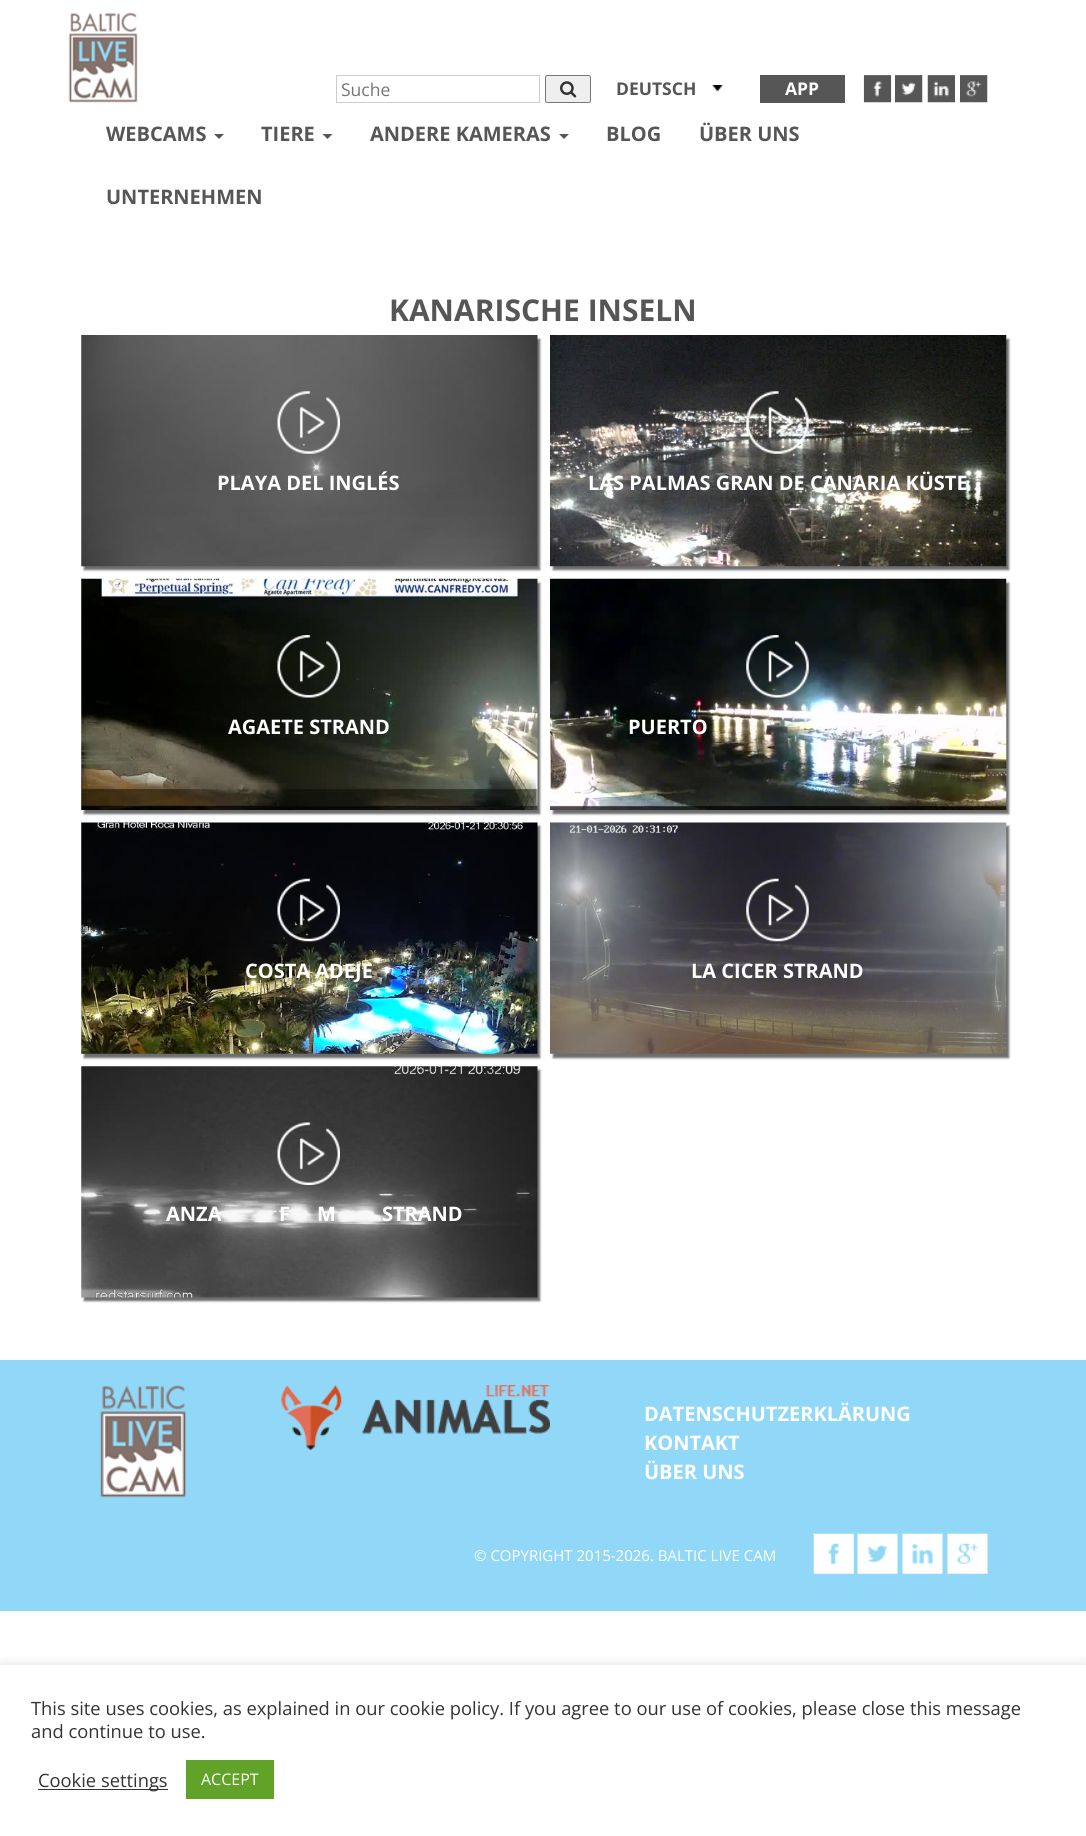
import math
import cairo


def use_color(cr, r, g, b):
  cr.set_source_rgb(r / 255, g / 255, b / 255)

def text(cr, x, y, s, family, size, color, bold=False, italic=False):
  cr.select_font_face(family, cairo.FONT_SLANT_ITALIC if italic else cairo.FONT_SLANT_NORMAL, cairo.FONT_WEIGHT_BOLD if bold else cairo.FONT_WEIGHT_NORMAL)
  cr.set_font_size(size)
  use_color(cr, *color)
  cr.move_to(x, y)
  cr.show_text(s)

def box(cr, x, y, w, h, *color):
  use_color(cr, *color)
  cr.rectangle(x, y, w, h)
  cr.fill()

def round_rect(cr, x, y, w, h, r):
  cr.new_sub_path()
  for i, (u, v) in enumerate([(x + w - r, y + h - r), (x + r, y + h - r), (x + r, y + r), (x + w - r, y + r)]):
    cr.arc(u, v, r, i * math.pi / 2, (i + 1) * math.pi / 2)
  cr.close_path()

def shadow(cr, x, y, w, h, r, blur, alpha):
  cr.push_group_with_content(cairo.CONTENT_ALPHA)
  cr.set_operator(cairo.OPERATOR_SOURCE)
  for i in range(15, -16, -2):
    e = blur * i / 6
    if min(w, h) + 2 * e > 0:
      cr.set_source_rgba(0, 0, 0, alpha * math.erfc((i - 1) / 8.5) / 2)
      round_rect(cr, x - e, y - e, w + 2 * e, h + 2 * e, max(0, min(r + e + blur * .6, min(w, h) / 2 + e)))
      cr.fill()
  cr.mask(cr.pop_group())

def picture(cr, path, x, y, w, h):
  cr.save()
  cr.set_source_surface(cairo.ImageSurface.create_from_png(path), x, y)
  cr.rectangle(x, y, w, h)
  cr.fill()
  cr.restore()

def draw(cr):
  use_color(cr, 255, 255, 255)
  cr.paint()
  picture(cr, "img_01.png", 68, 12, 70, 91)
  cr.rectangle(336.5, 75.5, 203, 27)
  use_color(cr, 204, 204, 204)
  cr.set_line_width(1)
  cr.stroke()
  use_color(cr, 239, 239, 239)
  round_rect(cr, 545.5, 75.5, 45, 27, 2)
  cr.fill_preserve()
  use_color(cr, 118, 118, 118)
  cr.stroke()
  picture(cr, "img_02.png", 560, 81, 17, 17)
  picture(cr, "img_03.png", 712, 85, 11, 7)
  box(cr, 760, 75, 85, 28, 86, 86, 86)
  picture(cr, "img_04.png", 863, 75, 29, 28)
  picture(cr, "img_05.png", 895, 75, 28, 28)
  picture(cr, "img_06.png", 927, 75, 28, 28)
  picture(cr, "img_07.png", 960, 75, 28, 28)
  cr.new_path()
  cr.move_to(214, 134)
  cr.line_to(224, 134)
  cr.line_to(219, 139)
  cr.close_path()
  cr.fill()
  cr.new_path()
  cr.move_to(322.5, 134)
  cr.line_to(332.5, 134)
  cr.line_to(327.5, 139)
  cr.close_path()
  cr.fill()
  cr.new_path()
  cr.move_to(559, 134)
  cr.line_to(569, 134)
  cr.line_to(564, 139)
  cr.close_path()
  cr.fill()
  use_color(cr, 46, 46, 46)
  shadow(cr, 84, 339, 456, 231, 0, 1, 0.7)
  picture(cr, "img_08.png", 81, 335, 457, 232)
  picture(cr, "img_09.png", 277, 391, 63, 63)
  shadow(cr, 553, 339, 456, 231, 0, 1, 0.7)
  picture(cr, "img_10.png", 550, 335, 457, 232)
  picture(cr, "img_11.png", 746, 391, 63, 63)
  shadow(cr, 84, 583, 456, 231, 0, 1, 0.7)
  picture(cr, "img_12.png", 81, 578, 457, 232)
  picture(cr, "img_13.png", 277, 635, 63, 63)
  shadow(cr, 553, 583, 456, 231, 0, 1, 0.7)
  picture(cr, "img_14.png", 550, 578, 457, 232)
  picture(cr, "img_15.png", 746, 635, 63, 63)
  shadow(cr, 84, 826, 456, 232, 0, 1, 0.7)
  picture(cr, "img_16.png", 81, 822, 457, 232)
  picture(cr, "img_17.png", 277, 878, 63, 64)
  shadow(cr, 553, 826, 456, 232, 0, 1, 0.7)
  picture(cr, "img_18.png", 550, 822, 457, 232)
  picture(cr, "img_19.png", 746, 878, 63, 64)
  shadow(cr, 84, 1070, 456, 231, 0, 1, 0.7)
  picture(cr, "img_20.png", 81, 1066, 457, 232)
  picture(cr, "img_21.png", 277, 1122, 63, 63)
  box(cr, 0, 1360, 1086, 251, 145, 216, 248)
  picture(cr, "img_22.png", 100, 1385, 87, 113)
  picture(cr, "img_23.png", 281, 1385, 269, 65)
  picture(cr, "img_24.png", 813, 1533, 41, 41)
  picture(cr, "img_25.png", 857, 1533, 41, 41)
  picture(cr, "img_26.png", 902, 1533, 41, 41)
  picture(cr, "img_27.png", 947, 1533, 41, 41)
  cr.save()
  cr.rectangle(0, 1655, 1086, 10)
  cr.clip()
  use_color(cr, 172, 171, 171)
  shadow(cr, 0, 1664, 1086, 171, 0, 6, 0.3)
  cr.restore()
  box(cr, 38, 1789, 130, 1, 51, 51, 51)
  box(cr, 186, 1760, 88, 39, 97, 162, 41)
  text(cr, 341, 96, "Suche", "Open Sans", 17.5, (117, 117, 117))
  text(cr, 616, 95, "DEUTSCH", "Open Sans", 17.5, (86, 86, 86), bold=True)
  text(cr, 785, 95, "APP", "Open Sans", 17.5, (255, 255, 255), bold=True)
  text(cr, 106, 141, "WEBCAMS", "Open Sans", 20, (86, 86, 86), bold=True)
  text(cr, 261, 141, "TIERE", "Open Sans", 20, (86, 86, 86), bold=True)
  text(cr, 370, 141, "ANDERE KAMERAS", "Open Sans", 20, (86, 86, 86), bold=True)
  text(cr, 606, 141, "BLOG", "Open Sans", 20, (86, 86, 86), bold=True)
  text(cr, 699, 141, "ÜBER UNS", "Open Sans", 20, (86, 86, 86), bold=True)
  text(cr, 106, 204, "UNTERNEHMEN", "Open Sans", 20, (86, 86, 86), bold=True)
  text(cr, 389, 321, "KANARISCHE INSELN", "Open Sans", 30, (86, 86, 86), bold=True)
  text(cr, 217, 490, "PLAYA DEL INGLÉS", "Open Sans", 20, (255, 255, 255), bold=True)
  text(cr, 588, 490, "LAS PALMAS GRAN DE CANARIA KÜSTE", "Open Sans", 20, (255, 255, 255), bold=True)
  text(cr, 228, 734, "AGAETE STRAND", "Open Sans", 20, (255, 255, 255), bold=True)
  text(cr, 628, 734, "PUERTO", "Open Sans", 20, (255, 255, 255), bold=True)
  text(cr, 245, 978, "COSTA ADEJE", "Open Sans", 20, (255, 255, 255), bold=True)
  text(cr, 691, 978, "LA CICER STRAND", "Open Sans", 20, (255, 255, 255), bold=True)
  text(cr, 166, 1221, "ANZA", "Open Sans", 20, (255, 255, 255), bold=True)
  text(cr, 279, 1221, "F", "Open Sans", 20, (255, 255, 255), bold=True)
  text(cr, 317, 1221, "M", "Open Sans", 20, (255, 255, 255), bold=True)
  text(cr, 382, 1221, "STRAND", "Open Sans", 20, (255, 255, 255), bold=True)
  text(cr, 644, 1421, "DATENSCHUTZERKLÄRUNG", "Open Sans", 20, (255, 255, 255), bold=True)
  text(cr, 644, 1450, "KONTAKT", "Open Sans", 20, (255, 255, 255), bold=True)
  text(cr, 644, 1479, "ÜBER UNS", "Open Sans", 20, (255, 255, 255), bold=True)
  text(cr, 474, 1561, "© COPYRIGHT 2015-2026. BALTIC LIVE CAM", "Open Sans", 15, (255, 255, 255))
  text(cr, 31, 1715, "This site uses cookies, as explained in our cookie policy. If you agree to our use of cookies, please close this message", "Open Sans", 18.33, (51, 51, 51))
  text(cr, 31, 1738, "and continue to use.", "Open Sans", 18.33, (51, 51, 51))
  text(cr, 38, 1787, "Cookie settings", "Open Sans", 18.33, (51, 51, 51))
  text(cr, 201, 1785, "ACCEPT", "Open Sans", 16, (255, 255, 255))


surface = cairo.ImageSurface(cairo.FORMAT_RGB24, 1086, 1836)
cr = cairo.Context(surface)
options = cairo.FontOptions()
options.set_hint_metrics(cairo.HINT_METRICS_OFF)
options.set_hint_style(cairo.HINT_STYLE_NONE)
cr.set_font_options(options)
cr.set_miter_limit(4)
draw(cr)
surface.write_to_png("out.png")
